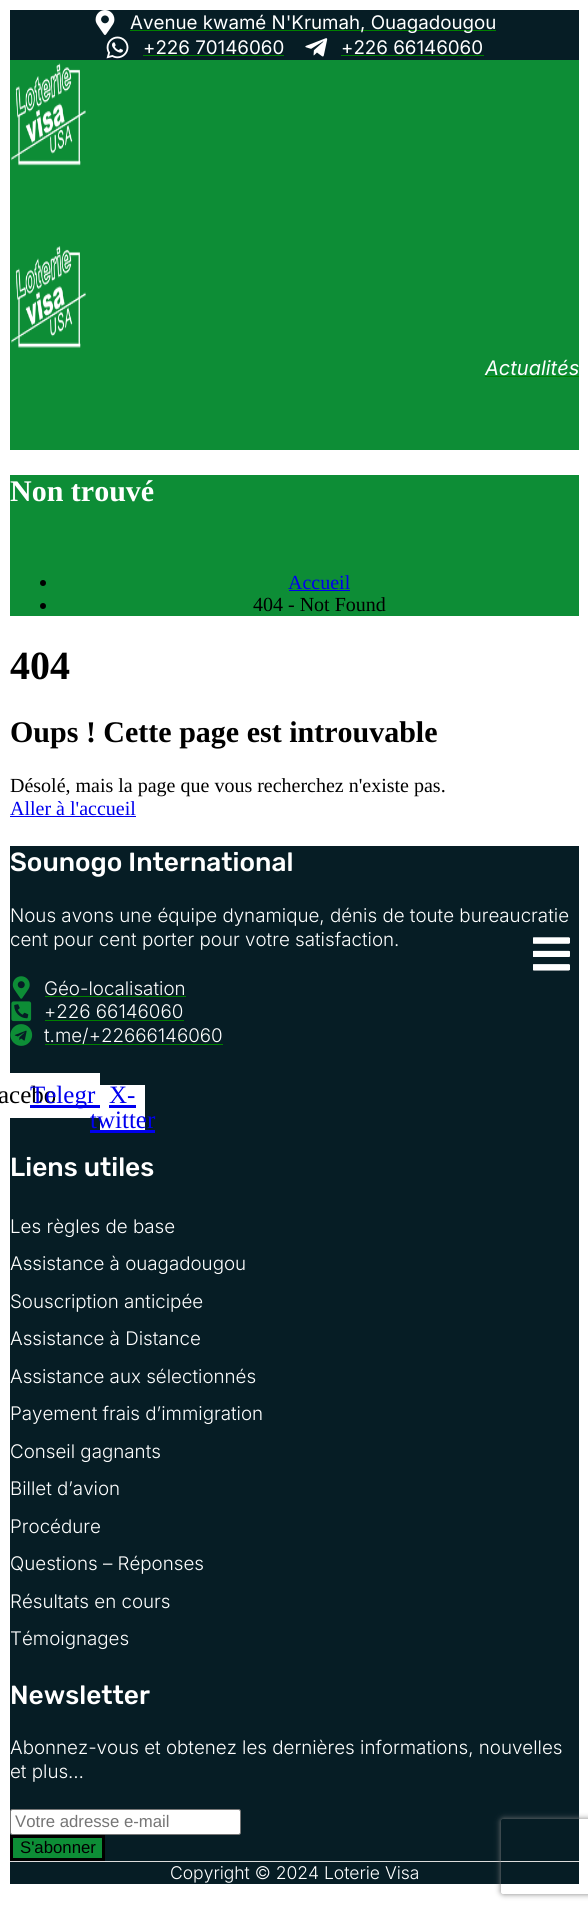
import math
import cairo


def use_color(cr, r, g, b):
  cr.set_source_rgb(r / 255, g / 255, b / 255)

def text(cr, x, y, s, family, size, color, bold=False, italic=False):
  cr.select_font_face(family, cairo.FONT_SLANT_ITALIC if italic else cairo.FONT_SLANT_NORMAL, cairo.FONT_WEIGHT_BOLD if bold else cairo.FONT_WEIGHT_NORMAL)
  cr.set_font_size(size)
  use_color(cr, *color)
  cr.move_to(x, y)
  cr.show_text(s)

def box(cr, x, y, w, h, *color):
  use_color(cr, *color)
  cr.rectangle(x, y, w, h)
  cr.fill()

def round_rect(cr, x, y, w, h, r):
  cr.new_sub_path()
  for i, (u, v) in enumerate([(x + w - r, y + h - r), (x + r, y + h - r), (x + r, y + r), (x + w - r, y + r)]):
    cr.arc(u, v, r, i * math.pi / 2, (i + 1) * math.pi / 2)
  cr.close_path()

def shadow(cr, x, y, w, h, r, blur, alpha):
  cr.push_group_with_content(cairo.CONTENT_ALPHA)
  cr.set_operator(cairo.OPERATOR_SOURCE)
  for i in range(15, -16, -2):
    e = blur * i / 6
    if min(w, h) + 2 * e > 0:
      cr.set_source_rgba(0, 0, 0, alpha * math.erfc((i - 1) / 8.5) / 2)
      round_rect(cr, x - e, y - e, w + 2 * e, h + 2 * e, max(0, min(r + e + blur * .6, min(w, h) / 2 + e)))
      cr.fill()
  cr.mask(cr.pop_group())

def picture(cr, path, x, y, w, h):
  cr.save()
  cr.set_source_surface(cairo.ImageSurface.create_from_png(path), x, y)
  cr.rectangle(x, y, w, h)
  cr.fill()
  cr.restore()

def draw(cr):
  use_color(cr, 255, 255, 255)
  cr.paint()
  box(cr, 10, 10, 569, 50, 6, 29, 37)
  picture(cr, "img_01.png", 95, 10, 20, 25)
  box(cr, 130, 30, 366, 1, 0, 128, 0)
  picture(cr, "img_02.png", 106, 36, 23, 23)
  box(cr, 143, 55, 141, 1, 0, 128, 0)
  picture(cr, "img_03.png", 305, 38, 23, 19)
  box(cr, 341, 55, 143, 1, 0, 128, 0)
  box(cr, 10, 60, 569, 390, 13, 141, 54)
  picture(cr, "img_04.png", 11, 63, 75, 103)
  box(cr, 10, 846, 569, 1038, 6, 29, 37)
  picture(cr, "img_05.png", 533, 937, 37, 34)
  picture(cr, "img_06.png", 11, 246, 75, 102)
  box(cr, 485, 376, 94, 1, 0, 128, 0)
  picture(cr, "img_07.png", 533, 937, 37, 34)
  box(cr, 10, 475, 569, 141, 13, 141, 54)
  use_color(cr, 0, 0, 0)
  cr.arc(43, 583, 3, 0, 2 * math.pi)
  cr.fill()
  box(cr, 289, 590, 61, 1, 0, 0, 238)
  use_color(cr, 0, 0, 0)
  cr.arc(43, 606, 3, 0, 2 * math.pi)
  cr.fill()
  box(cr, 10, 816, 126, 1, 0, 0, 238)
  picture(cr, "img_08.png", 12, 976, 18, 23)
  box(cr, 45, 996, 141, 1, 0, 128, 0)
  picture(cr, "img_09.png", 11, 1001, 21, 21)
  box(cr, 45, 1020, 139, 1, 0, 128, 0)
  picture(cr, "img_10.png", 10, 1024, 23, 22)
  box(cr, 45, 1044, 178, 1, 0, 128, 0)
  box(cr, 10, 1073, 45, 45, 255, 255, 255)
  box(cr, 100, 1085, 45, 45, 255, 255, 255)
  box(cr, 109, 1105, 27, 3, 0, 0, 238)
  box(cr, 90, 1130, 65, 3, 0, 0, 238)
  use_color(cr, 255, 255, 255)
  round_rect(cr, 10.5, 1809.5, 230, 25, 2)
  cr.fill_preserve()
  use_color(cr, 118, 118, 118)
  cr.set_line_width(1)
  cr.stroke()
  use_color(cr, 13, 141, 54)
  cr.rectangle(11.5, 1836.5, 92, 23)
  cr.fill_preserve()
  use_color(cr, 0, 0, 0)
  cr.set_line_width(3)
  cr.stroke()
  box(cr, 10, 1861, 569, 1, 221, 221, 221)
  cr.save()
  cr.set_fill_rule(cairo.FILL_RULE_EVEN_ODD)
  cr.new_path()
  cr.move_to(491, 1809)
  cr.line_to(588, 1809)
  cr.line_to(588, 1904)
  cr.line_to(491, 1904)
  cr.close_path()
  cr.move_to(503.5, 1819)
  cr.line_to(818.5, 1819)
  cr.curve_to(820, 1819, 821, 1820, 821, 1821.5)
  cr.line_to(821, 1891.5)
  cr.curve_to(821, 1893, 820, 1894, 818.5, 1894)
  cr.line_to(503.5, 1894)
  cr.curve_to(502, 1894, 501, 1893, 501, 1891.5)
  cr.line_to(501, 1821.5)
  cr.curve_to(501, 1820, 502, 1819, 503.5, 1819)
  cr.close_path()
  cr.clip()
  use_color(cr, 128, 128, 128)
  shadow(cr, 501, 1819, 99, 75, 2.5, 3, 1)
  cr.restore()
  text(cr, 130, 29, "Avenue kwamé N'Krumah, Ouagadougou", "Inter", 18.75, (255, 255, 255))
  text(cr, 143, 54, "+226 70146060", "Inter", 18.75, (255, 255, 255))
  text(cr, 341, 54, "+226 66146060", "Inter", 18.75, (255, 255, 255))
  text(cr, 485, 375, "Actualités", "Inter", 20, (255, 255, 255), italic=True)
  text(cr, 10, 501, "Non trouvé", "Liberation Serif", 30, (255, 255, 255), bold=True)
  text(cr, 288, 589, "Accueil", "Liberation Serif", 20, (0, 0, 238))
  text(cr, 253, 611, "404 - Not Found", "Liberation Serif", 20, (0, 0, 0))
  text(cr, 10, 679, "404", "Liberation Serif", 40, (0, 0, 0), bold=True)
  text(cr, 10, 742, "Oups ! Cette page est introuvable", "Liberation Serif", 30, (0, 0, 0), bold=True)
  text(cr, 10, 792, "Désolé, mais la page que vous recherchez n'existe pas.", "Liberation Serif", 20, (0, 0, 0))
  text(cr, 10, 815, "Aller à l'accueil", "Liberation Serif", 20, (0, 0, 238))
  text(cr, 10, 871, "Sounogo International", "Rubik Medium", 26.25, (255, 255, 255))
  text(cr, 10, 922, "Nous avons une équipe dynamique, dénis de toute bureaucratie", "Inter Light", 18.75, (255, 255, 255))
  text(cr, 10, 946, "cent pour cent porter pour votre satisfaction.", "Inter Light", 18.75, (255, 255, 255))
  text(cr, 44, 995, "Géo-localisation", "Inter Light", 18.75, (255, 255, 255))
  text(cr, 44, 1018, "+226 66146060", "Inter Light", 18.75, (255, 255, 255))
  text(cr, 44, 1042, "t.me/+22666146060", "Inter Light", 18.75, (255, 255, 255))
  text(cr, -2, 1103, "acebo", "Liberation Serif", 25, (0, 0, 0))
  box(cr, 55, 1073, 45, 45, 255, 255, 255)
  box(cr, 30, 1105, 70, 3, 0, 0, 238)
  text(cr, 30, 1103, "Telegr", "Liberation Serif", 25, (0, 0, 238))
  text(cr, 109, 1103, "X-", "Liberation Serif", 25, (0, 0, 238))
  text(cr, 90, 1128, "twitter", "Liberation Serif", 25, (0, 0, 238))
  text(cr, 10, 1176, "Liens utiles", "Rubik Medium", 26.25, (255, 255, 255))
  text(cr, 10, 1233, "Les règles de base", "Inter Light", 18.75, (255, 255, 255))
  text(cr, 10, 1270, "Assistance à ouagadougou", "Inter Light", 18.75, (255, 255, 255))
  text(cr, 10, 1308, "Souscription anticipée", "Inter Light", 18.75, (255, 255, 255))
  text(cr, 10, 1345, "Assistance à Distance", "Inter Light", 18.75, (255, 255, 255))
  text(cr, 10, 1383, "Assistance aux sélectionnés", "Inter Light", 18.75, (255, 255, 255))
  text(cr, 10, 1420, "Payement frais d’immigration", "Inter Light", 18.75, (255, 255, 255))
  text(cr, 10, 1458, "Conseil gagnants", "Inter Light", 18.75, (255, 255, 255))
  text(cr, 10, 1495, "Billet d’avion", "Inter Light", 18.75, (255, 255, 255))
  text(cr, 10, 1533, "Procédure", "Inter Light", 18.75, (255, 255, 255))
  text(cr, 10, 1570, "Questions – Réponses", "Inter Light", 18.75, (255, 255, 255))
  text(cr, 10, 1608, "Résultats en cours", "Inter Light", 18.75, (255, 255, 255))
  text(cr, 10, 1645, "Témoignages", "Inter Light", 18.75, (255, 255, 255))
  text(cr, 10, 1704, "Newsletter", "Rubik Medium", 26.25, (255, 255, 255))
  text(cr, 10, 1754, "Abonnez-vous et obtenez les dernières informations, nouvelles", "Inter Light", 18.75, (255, 255, 255))
  text(cr, 10, 1778, "et plus…", "Inter Light", 18.75, (255, 255, 255))
  text(cr, 15, 1827, "Votre adresse e-mail", "Liberation Sans", 16.75, (117, 117, 117))
  text(cr, 20, 1853, "S'abonner", "Liberation Sans", 16.75, (0, 0, 0))
  text(cr, 170, 1879, "Copyright © 2024 Loterie Visa", "Inter Light", 17.5, (255, 255, 255))


surface = cairo.ImageSurface(cairo.FORMAT_RGB24, 588, 1911)
cr = cairo.Context(surface)
options = cairo.FontOptions()
options.set_hint_metrics(cairo.HINT_METRICS_OFF)
options.set_hint_style(cairo.HINT_STYLE_NONE)
cr.set_font_options(options)
cr.set_miter_limit(4)
draw(cr)
surface.write_to_png("out.png")
